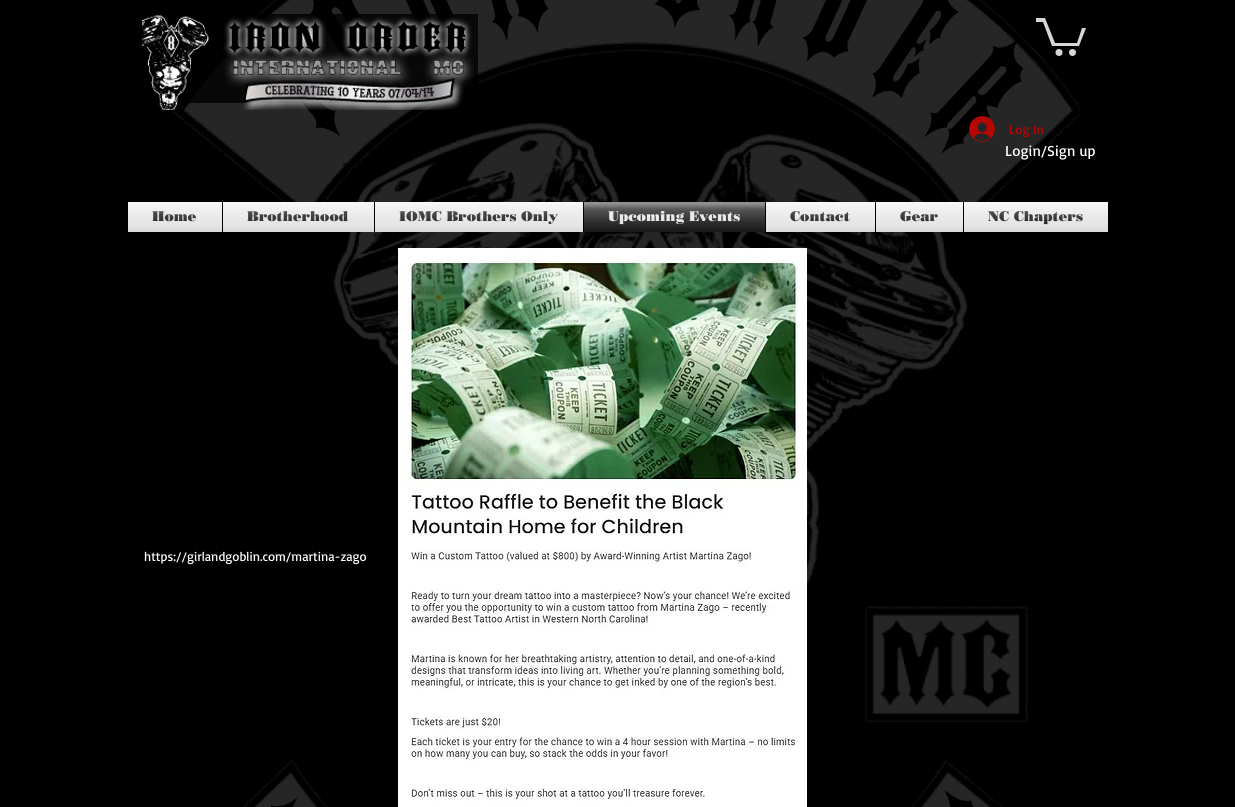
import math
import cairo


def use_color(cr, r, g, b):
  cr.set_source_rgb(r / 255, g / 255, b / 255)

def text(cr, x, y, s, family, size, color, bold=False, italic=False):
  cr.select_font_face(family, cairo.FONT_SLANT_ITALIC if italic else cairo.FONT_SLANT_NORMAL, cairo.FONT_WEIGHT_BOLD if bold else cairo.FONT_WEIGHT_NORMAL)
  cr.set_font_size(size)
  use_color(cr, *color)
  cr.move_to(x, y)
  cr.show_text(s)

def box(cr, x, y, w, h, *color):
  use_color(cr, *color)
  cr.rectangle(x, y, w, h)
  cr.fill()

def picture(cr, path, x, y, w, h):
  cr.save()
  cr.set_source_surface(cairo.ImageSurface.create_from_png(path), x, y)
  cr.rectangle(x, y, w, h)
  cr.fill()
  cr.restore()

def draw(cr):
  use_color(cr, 0, 0, 0)
  cr.paint()
  picture(cr, "img_01.png", 173, 0, 908, 807)
  cr.set_source_rgba(0, 0, 0, 0.78)
  cr.rectangle(179, 14, 299, 89)
  cr.fill()
  picture(cr, "img_02.png", 142, 14, 332, 96)
  use_color(cr, 214, 214, 214)
  cr.new_path()
  cr.move_to(1086, 28)
  cr.line_to(1079, 46)
  cr.line_to(1052, 46)
  cr.line_to(1043, 22)
  cr.line_to(1036, 22)
  cr.line_to(1036, 18)
  cr.line_to(1045, 18)
  cr.line_to(1055, 43)
  cr.line_to(1077, 43)
  cr.line_to(1082, 28)
  cr.fill()
  cr.arc(1072.5, 52.5, 3.5, 0, 2 * math.pi)
  cr.fill()
  cr.arc(1059, 52.5, 3.5, 0, 2 * math.pi)
  cr.fill()
  picture(cr, "img_03.png", 969, 116, 26, 26)
  box(cr, 128, 202, 94, 30, 255, 255, 255)
  box(cr, 223, 202, 151, 30, 255, 255, 255)
  box(cr, 375, 202, 208, 30, 255, 255, 255)
  box(cr, 374, 202, 1, 30, 0, 0, 0)
  box(cr, 583, 202, 182, 30, 0, 0, 0)
  box(cr, 766, 202, 109, 30, 255, 255, 255)
  box(cr, 765, 215, 1, 7, 0, 0, 0)
  box(cr, 876, 202, 87, 30, 255, 255, 255)
  box(cr, 875, 217, 1, 15, 0, 0, 0)
  box(cr, 964, 202, 144, 30, 255, 255, 255)
  box(cr, 963, 202, 1, 30, 0, 0, 0)
  picture(cr, "img_18.png", 398, 248, 409, 559)
  text(cr, 1009, 134, "Log In", "Basic", 13, (181, 6, 3))
  text(cr, 1005, 156, "Login/Sign up", "Basic", 15, (255, 255, 255))
  text(cr, 152, 221, "Home", "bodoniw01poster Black", 14, (0, 0, 0))
  picture(cr, "img_04.png", 152, 211, 45, 11)
  picture(cr, "img_05.png", 128, 202, 94, 30)
  text(cr, 247, 221, "Brotherhood", "bodoniw01poster Black", 14, (0, 0, 0))
  picture(cr, "img_06.png", 247, 211, 102, 11)
  picture(cr, "img_07.png", 223, 202, 151, 30)
  text(cr, 399, 221, "IOMC Brothers Only", "bodoniw01poster Black", 14, (0, 0, 0))
  picture(cr, "img_08.png", 399, 211, 159, 13)
  picture(cr, "img_09.png", 375, 202, 208, 30)
  text(cr, 608, 221, "Upcoming Events", "bodoniw01poster Black", 14, (255, 255, 255))
  picture(cr, "img_10.png", 584, 202, 181, 30)
  picture(cr, "img_11.png", 584, 202, 181, 29)
  text(cr, 790, 221, "Contact", "bodoniw01poster Black", 14, (0, 0, 0))
  picture(cr, "img_12.png", 790, 211, 60, 11)
  picture(cr, "img_13.png", 766, 202, 109, 30)
  text(cr, 900, 221, "Gear", "bodoniw01poster Black", 14, (0, 0, 0))
  picture(cr, "img_14.png", 900, 211, 38, 11)
  picture(cr, "img_15.png", 876, 202, 87, 30)
  text(cr, 988, 221, "NC Chapters", "bodoniw01poster Black", 14, (0, 0, 0))
  picture(cr, "img_16.png", 988, 211, 95, 13)
  picture(cr, "img_17.png", 964, 202, 144, 30)
  text(cr, 144, 561, "https://girlandgoblin.com/martina-zago", "Basic", 13, (255, 255, 255))


surface = cairo.ImageSurface(cairo.FORMAT_RGB24, 1235, 807)
cr = cairo.Context(surface)
options = cairo.FontOptions()
options.set_hint_metrics(cairo.HINT_METRICS_OFF)
options.set_hint_style(cairo.HINT_STYLE_NONE)
cr.set_font_options(options)
cr.set_miter_limit(4)
draw(cr)
surface.write_to_png("out.png")
